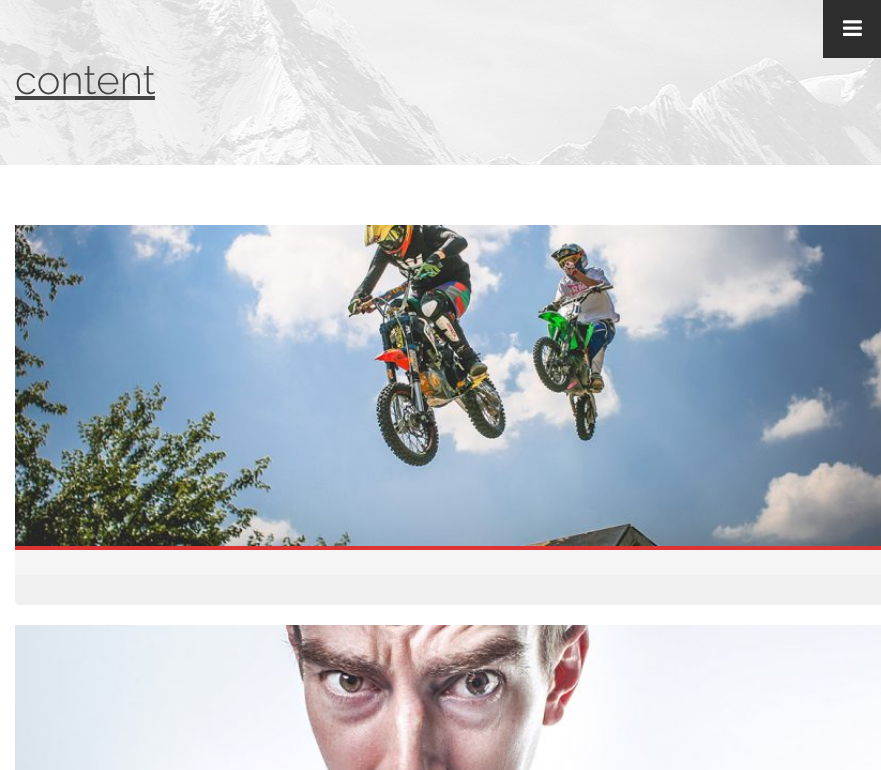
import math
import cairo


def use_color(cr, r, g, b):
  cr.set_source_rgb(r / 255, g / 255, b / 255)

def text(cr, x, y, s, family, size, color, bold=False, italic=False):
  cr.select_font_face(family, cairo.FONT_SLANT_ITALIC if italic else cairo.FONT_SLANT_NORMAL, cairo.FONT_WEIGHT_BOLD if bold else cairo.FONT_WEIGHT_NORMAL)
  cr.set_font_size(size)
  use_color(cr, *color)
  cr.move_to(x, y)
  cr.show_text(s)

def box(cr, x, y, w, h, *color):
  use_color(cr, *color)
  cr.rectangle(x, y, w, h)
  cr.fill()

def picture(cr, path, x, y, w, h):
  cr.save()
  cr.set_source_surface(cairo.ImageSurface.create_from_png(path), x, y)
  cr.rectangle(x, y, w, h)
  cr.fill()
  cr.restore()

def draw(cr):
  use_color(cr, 255, 255, 255)
  cr.paint()
  picture(cr, "img_02.png", 0, 0, 881, 165)
  box(cr, 823, 0, 58, 58, 45, 45, 45)
  picture(cr, "img_01.png", 843, 20, 19, 16)
  box(cr, 15, 96, 140, 4, 68, 68, 68)
  picture(cr, "img_03.png", 15, 225, 866, 321)
  use_color(cr, 245, 245, 245)
  cr.new_path()
  cr.move_to(15, 546)
  cr.line_to(881, 546)
  cr.line_to(881, 605)
  cr.line_to(20, 605)
  cr.curve_to(17, 605, 15, 603, 15, 600)
  cr.close_path()
  cr.fill()
  box(cr, 15, 546, 866, 4, 221, 51, 51)
  use_color(cr, 240, 240, 240)
  cr.new_path()
  cr.move_to(15, 575)
  cr.line_to(881, 575)
  cr.line_to(881, 605)
  cr.line_to(20, 605)
  cr.curve_to(17, 605, 15, 603, 15, 600)
  cr.close_path()
  cr.fill()
  picture(cr, "img_04.png", 15, 625, 866, 145)
  text(cr, 15, 94, "content", "Raleway Light", 40, (68, 68, 68))


surface = cairo.ImageSurface(cairo.FORMAT_RGB24, 881, 770)
cr = cairo.Context(surface)
options = cairo.FontOptions()
options.set_hint_metrics(cairo.HINT_METRICS_OFF)
options.set_hint_style(cairo.HINT_STYLE_NONE)
cr.set_font_options(options)
cr.set_miter_limit(4)
draw(cr)
surface.write_to_png("out.png")
